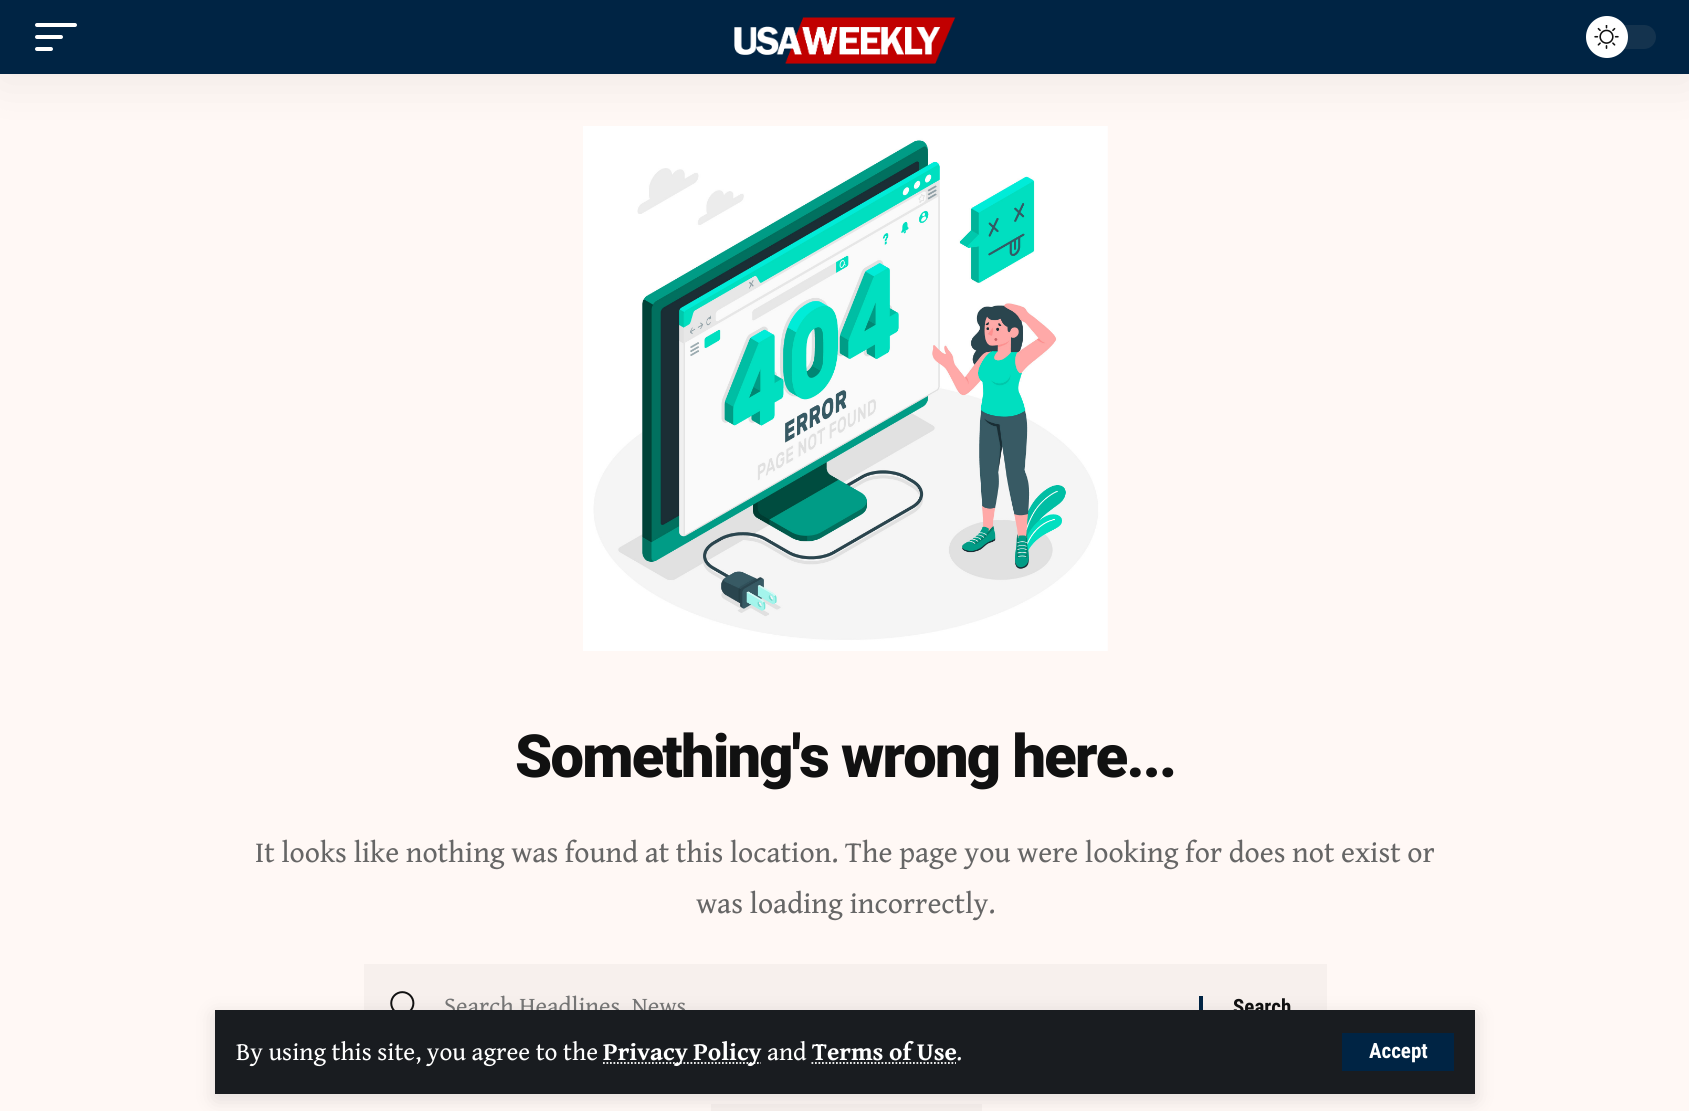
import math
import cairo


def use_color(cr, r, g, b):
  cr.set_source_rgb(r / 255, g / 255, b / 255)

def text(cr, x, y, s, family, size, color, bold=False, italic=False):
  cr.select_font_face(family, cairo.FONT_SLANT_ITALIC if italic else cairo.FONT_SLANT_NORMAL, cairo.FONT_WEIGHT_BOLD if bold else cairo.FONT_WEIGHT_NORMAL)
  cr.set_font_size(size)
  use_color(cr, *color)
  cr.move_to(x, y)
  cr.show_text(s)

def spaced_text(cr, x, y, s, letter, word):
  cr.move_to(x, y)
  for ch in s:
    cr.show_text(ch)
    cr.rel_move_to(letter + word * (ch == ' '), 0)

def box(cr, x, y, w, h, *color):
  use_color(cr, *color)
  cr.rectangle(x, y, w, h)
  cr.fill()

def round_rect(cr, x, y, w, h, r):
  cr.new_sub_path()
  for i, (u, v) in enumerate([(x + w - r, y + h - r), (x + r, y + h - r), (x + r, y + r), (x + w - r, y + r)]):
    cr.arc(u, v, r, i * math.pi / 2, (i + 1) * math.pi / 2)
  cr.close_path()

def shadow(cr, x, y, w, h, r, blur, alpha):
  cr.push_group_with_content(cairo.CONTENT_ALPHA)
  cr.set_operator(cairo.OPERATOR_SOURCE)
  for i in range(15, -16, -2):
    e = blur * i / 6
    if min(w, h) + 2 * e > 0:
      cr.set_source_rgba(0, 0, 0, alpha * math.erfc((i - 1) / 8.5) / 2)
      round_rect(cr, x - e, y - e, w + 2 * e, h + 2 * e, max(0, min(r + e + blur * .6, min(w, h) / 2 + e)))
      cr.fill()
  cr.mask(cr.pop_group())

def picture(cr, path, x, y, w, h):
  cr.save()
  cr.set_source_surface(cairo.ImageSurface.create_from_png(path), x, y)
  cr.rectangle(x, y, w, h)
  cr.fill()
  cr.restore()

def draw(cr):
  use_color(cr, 255, 248, 245)
  cr.paint()
  picture(cr, "img_01.png", 583, 126, 525, 525)
  box(cr, 364, 964, 963, 46, 247, 240, 237)
  picture(cr, "img_02.png", 390, 991, 25, 19)
  box(cr, 1199, 996, 4, 14, 0, 36, 68)
  box(cr, 711, 1104, 271, 7, 247, 240, 237)
  use_color(cr, 0, 0, 0)
  shadow(cr, 0, 7, 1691, 74, 0, 26, 0.07)
  box(cr, 0, 0, 1689, 74, 0, 36, 68)
  use_color(cr, 255, 255, 255)
  round_rect(cr, 35, 23, 42, 4, 2)
  cr.fill()
  round_rect(cr, 35, 35, 28, 4, 2)
  cr.fill()
  round_rect(cr, 35, 47, 18, 4, 2)
  cr.fill()
  picture(cr, "img_03.png", 734, 17, 222, 47)
  use_color(cr, 20, 51, 78)
  round_rect(cr, 1586, 25, 70, 24, 12)
  cr.fill()
  use_color(cr, 255, 255, 255)
  cr.arc(1607, 37, 21, 0, 2 * math.pi)
  cr.fill()
  picture(cr, "img_04.png", 1594, 25, 25, 24)
  use_color(cr, 0, 0, 0)
  shadow(cr, 215, 1015, 1260, 84, 0, 10.5, 0.12)
  cr.select_font_face("Roboto Black")
  cr.set_font_size(59.5)
  use_color(cr, 17, 17, 17)
  spaced_text(cr, 515, 777, "Something's wrong here...", -1.75, 0)
  text(cr, 255, 862, "It looks like nothing was found at this location. The page you were looking for does not exist or", "Gentium Book Plus", 29.75, (102, 102, 102))
  text(cr, 696, 913, "was loading incorrectly.", "Gentium Book Plus", 29.75, (102, 102, 102))
  text(cr, 444, 1014, "Search Headlines, News", "Gentium Book Plus", 24.5, (117, 117, 117))
  text(cr, 1233, 1014, "Search", "Roboto Condensed", 21, (17, 17, 17), bold=True)
  box(cr, 215, 1010, 1260, 84, 25, 28, 32)
  text(cr, 236, 1060, "By using this site, you agree to the", "Gentium Book Plus", 25.25, (255, 255, 255))
  cr.new_path()
  cr.move_to(603, 1063)
  cr.line_to(761, 1063)
  cr.set_line_width(1.8)
  cr.set_dash([1.75, 1.75])
  cr.stroke()
  text(cr, 603, 1060, "Privacy Policy", "Gentium Book Plus", 25.25, (255, 255, 255), bold=True)
  text(cr, 767, 1060, "and", "Gentium Book Plus", 25.25, (255, 255, 255))
  text(cr, 812, 1060, "Terms of Use", "Gentium Book Plus", 25.25, (255, 255, 255), bold=True)
  cr.new_path()
  cr.move_to(811.5, 1063)
  cr.line_to(956, 1063)
  cr.stroke()
  text(cr, 956, 1060, ".", "Gentium Book Plus", 25.25, (255, 255, 255))
  box(cr, 1342, 1033, 112, 38, 0, 36, 68)
  text(cr, 1369, 1058, "Accept", "Roboto Condensed", 21, (255, 255, 255), bold=True)


surface = cairo.ImageSurface(cairo.FORMAT_RGB24, 1689, 1111)
cr = cairo.Context(surface)
options = cairo.FontOptions()
options.set_hint_metrics(cairo.HINT_METRICS_OFF)
options.set_hint_style(cairo.HINT_STYLE_NONE)
cr.set_font_options(options)
cr.set_miter_limit(4)
draw(cr)
surface.write_to_png("out.png")
